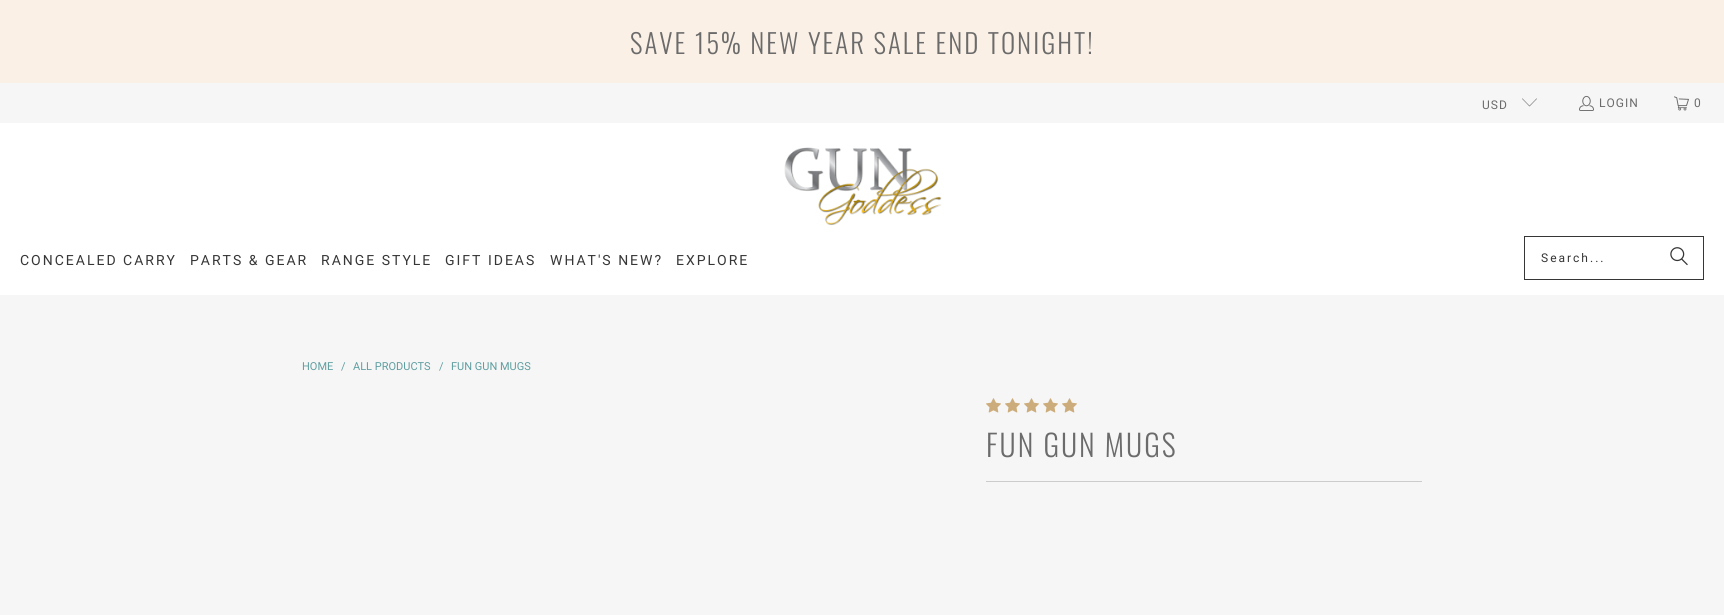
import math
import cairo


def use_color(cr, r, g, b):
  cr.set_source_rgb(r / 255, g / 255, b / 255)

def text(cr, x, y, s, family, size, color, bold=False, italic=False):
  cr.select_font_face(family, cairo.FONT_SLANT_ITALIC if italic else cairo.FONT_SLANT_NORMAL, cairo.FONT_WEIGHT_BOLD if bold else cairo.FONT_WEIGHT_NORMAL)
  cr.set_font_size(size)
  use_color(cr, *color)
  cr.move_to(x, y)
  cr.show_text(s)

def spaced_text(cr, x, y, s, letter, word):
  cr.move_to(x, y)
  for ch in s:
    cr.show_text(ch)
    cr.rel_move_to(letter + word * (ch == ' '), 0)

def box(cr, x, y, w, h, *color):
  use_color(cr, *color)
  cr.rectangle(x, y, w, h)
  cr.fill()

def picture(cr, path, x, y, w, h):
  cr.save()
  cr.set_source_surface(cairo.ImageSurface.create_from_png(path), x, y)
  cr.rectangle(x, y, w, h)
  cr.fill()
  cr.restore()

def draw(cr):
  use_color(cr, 246, 246, 246)
  cr.paint()
  box(cr, 0, 0, 1724, 83, 250, 240, 230)
  picture(cr, "img_01.png", 1522, 98, 15, 9)
  picture(cr, "img_02.png", 1579, 95, 15, 16)
  picture(cr, "img_03.png", 1674, 96, 15, 15)
  box(cr, 0, 123, 1724, 172, 255, 255, 255)
  picture(cr, "img_04.png", 784, 147, 158, 78)
  cr.rectangle(1524.5, 236.5, 179, 43)
  use_color(cr, 54, 54, 54)
  cr.set_line_width(1)
  cr.stroke()
  picture(cr, "img_05.png", 1670, 247, 18, 19)
  picture(cr, "img_06.png", 986, 398, 15, 15)
  picture(cr, "img_06.png", 1005, 398, 15, 15)
  picture(cr, "img_06.png", 1024, 398, 15, 15)
  picture(cr, "img_06.png", 1043, 398, 15, 15)
  picture(cr, "img_06.png", 1062, 398, 15, 15)
  box(cr, 986, 481, 436, 1, 204, 204, 204)
  cr.select_font_face("Oswald Light")
  cr.set_font_size(27)
  use_color(cr, 107, 107, 107)
  spaced_text(cr, 630, 54, "SAVE 15% NEW YEAR SALE END TONIGHT!", 2, 0)
  cr.select_font_face("Roboto")
  cr.set_font_size(12)
  spaced_text(cr, 1482, 109, "USD", 1, 0)
  spaced_text(cr, 1599, 107, "LOGIN", 1, 0)
  spaced_text(cr, 1694, 107, "0", 1, 0)
  cr.set_font_size(14)
  use_color(cr, 54, 54, 54)
  spaced_text(cr, 20, 265, "CONCEALED CARRY", 2, 0)
  spaced_text(cr, 190, 265, "PARTS & GEAR", 2, 0)
  spaced_text(cr, 321, 265, "RANGE STYLE", 2, 0)
  spaced_text(cr, 445, 265, "GIFT IDEAS", 2, 0)
  spaced_text(cr, 550, 265, "WHAT'S NEW?", 2, 0)
  spaced_text(cr, 676, 265, "EXPLORE", 2, 0)
  cr.set_font_size(12)
  spaced_text(cr, 1541, 262, "Search...", 2, 0)
  text(cr, 302, 370, "HOME", "Roboto", 11, (95, 158, 160))
  text(cr, 341, 370, "/", "Roboto", 11, (95, 158, 160))
  text(cr, 353, 370, "ALL PRODUCTS", "Roboto", 11, (95, 158, 160))
  text(cr, 439, 370, "/", "Roboto", 11, (95, 158, 160))
  text(cr, 451, 370, "FUN GUN MUGS", "Roboto", 11, (95, 158, 160))
  cr.select_font_face("Oswald Light")
  cr.set_font_size(30)
  use_color(cr, 107, 107, 107)
  spaced_text(cr, 986, 457, "FUN GUN MUGS", 2, 0)


surface = cairo.ImageSurface(cairo.FORMAT_RGB24, 1724, 615)
cr = cairo.Context(surface)
options = cairo.FontOptions()
options.set_hint_metrics(cairo.HINT_METRICS_OFF)
options.set_hint_style(cairo.HINT_STYLE_NONE)
cr.set_font_options(options)
cr.set_miter_limit(4)
draw(cr)
surface.write_to_png("out.png")
